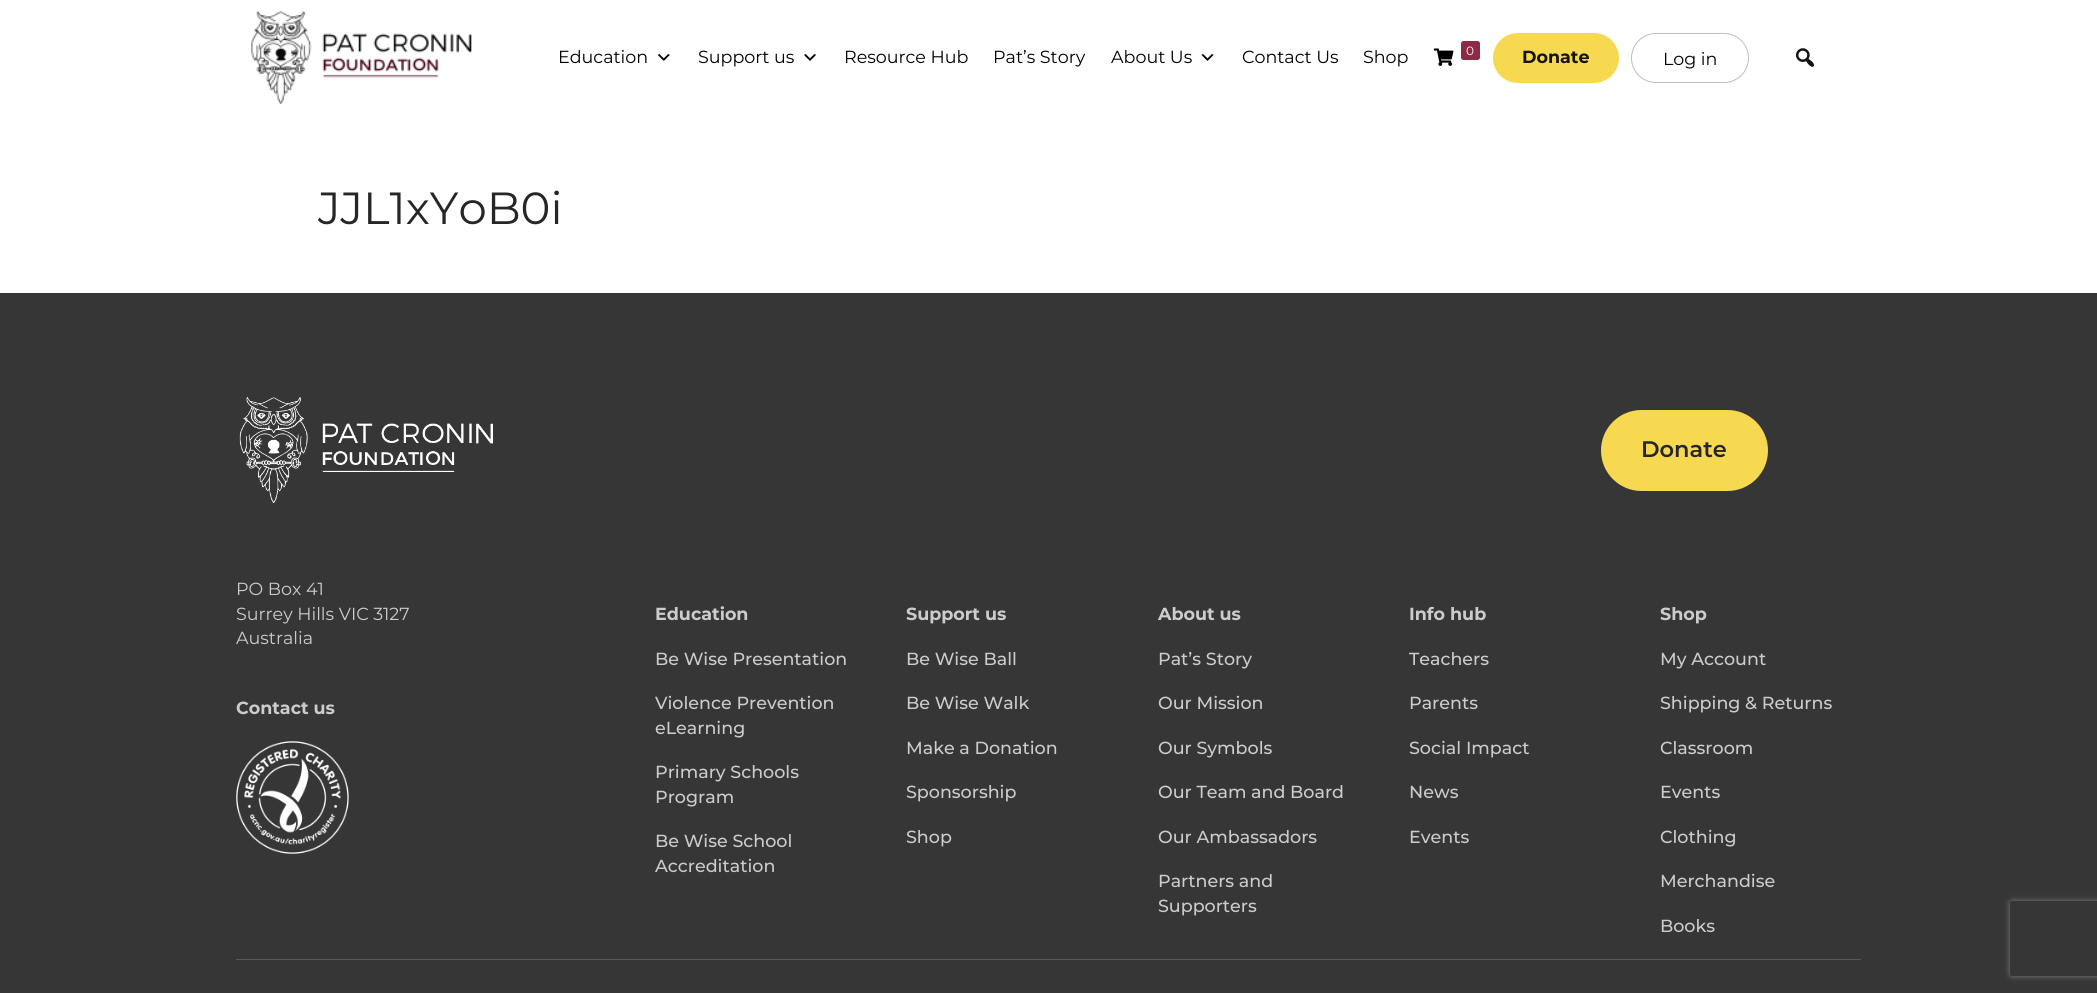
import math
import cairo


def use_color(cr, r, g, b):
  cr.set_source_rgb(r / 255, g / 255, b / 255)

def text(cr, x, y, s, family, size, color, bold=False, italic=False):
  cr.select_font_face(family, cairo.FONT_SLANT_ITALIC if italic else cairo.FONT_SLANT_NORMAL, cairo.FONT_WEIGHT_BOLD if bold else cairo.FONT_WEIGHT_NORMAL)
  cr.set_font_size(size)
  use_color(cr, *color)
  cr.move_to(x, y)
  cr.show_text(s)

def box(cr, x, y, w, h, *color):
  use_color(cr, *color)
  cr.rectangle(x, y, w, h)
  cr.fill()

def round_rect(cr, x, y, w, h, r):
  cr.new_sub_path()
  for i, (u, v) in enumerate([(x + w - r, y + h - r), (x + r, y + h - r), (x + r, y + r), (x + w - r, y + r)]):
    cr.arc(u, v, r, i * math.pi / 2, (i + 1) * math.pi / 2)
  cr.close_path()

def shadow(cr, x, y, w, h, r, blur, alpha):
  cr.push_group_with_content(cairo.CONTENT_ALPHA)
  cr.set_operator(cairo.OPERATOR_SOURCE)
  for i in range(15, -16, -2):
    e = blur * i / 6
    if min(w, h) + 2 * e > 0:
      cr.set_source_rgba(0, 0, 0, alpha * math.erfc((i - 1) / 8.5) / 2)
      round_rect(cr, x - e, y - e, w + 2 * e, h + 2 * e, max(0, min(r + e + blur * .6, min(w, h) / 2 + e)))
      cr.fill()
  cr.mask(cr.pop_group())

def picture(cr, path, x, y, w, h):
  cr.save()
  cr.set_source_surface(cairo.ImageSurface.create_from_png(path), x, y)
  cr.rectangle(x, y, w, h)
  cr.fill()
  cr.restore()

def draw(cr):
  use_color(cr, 255, 255, 255)
  cr.paint()
  picture(cr, "img_01.png", 251, 11, 221, 93)
  picture(cr, "img_02.png", 657, 54, 13, 7)
  picture(cr, "img_03.png", 804, 54, 12, 7)
  picture(cr, "img_04.png", 1201, 54, 13, 7)
  picture(cr, "img_05.png", 1433, 48, 21, 18)
  use_color(cr, 142, 41, 70)
  round_rect(cr, 1461, 41, 19, 19, 2.5)
  cr.fill()
  use_color(cr, 246, 217, 81)
  round_rect(cr, 1493, 33, 126, 50, 25)
  cr.fill()
  round_rect(cr, 1631.5, 33.5, 117, 49, 24.5)
  use_color(cr, 190, 190, 190)
  cr.set_line_width(1)
  cr.stroke()
  picture(cr, "img_06.png", 1796, 48, 18, 19)
  box(cr, 0, 293, 2097, 700, 54, 54, 54)
  picture(cr, "img_07.png", 239, 397, 254, 106)
  use_color(cr, 246, 217, 81)
  round_rect(cr, 1602.5, 411.5, 164, 78, 39)
  cr.fill_preserve()
  cr.set_line_width(3)
  cr.stroke()
  picture(cr, "img_08.png", 236, 741, 113, 113)
  box(cr, 236, 959, 1625, 1, 87, 87, 96)
  cr.save()
  cr.set_fill_rule(cairo.FILL_RULE_EVEN_ODD)
  cr.new_path()
  cr.move_to(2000, 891)
  cr.line_to(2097, 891)
  cr.line_to(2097, 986)
  cr.line_to(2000, 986)
  cr.close_path()
  cr.move_to(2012.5, 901)
  cr.line_to(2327.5, 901)
  cr.curve_to(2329, 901, 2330, 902, 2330, 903.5)
  cr.line_to(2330, 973.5)
  cr.curve_to(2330, 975, 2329, 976, 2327.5, 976)
  cr.line_to(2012.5, 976)
  cr.curve_to(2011, 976, 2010, 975, 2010, 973.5)
  cr.line_to(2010, 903.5)
  cr.curve_to(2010, 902, 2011, 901, 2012.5, 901)
  cr.close_path()
  cr.clip()
  use_color(cr, 128, 128, 128)
  shadow(cr, 2010, 901, 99, 75, 2.5, 3, 1)
  cr.restore()
  text(cr, 558, 63, "Education", "Montserrat", 17.5, (0, 0, 0))
  text(cr, 698, 63, "Support us", "Montserrat", 17.5, (0, 0, 0))
  text(cr, 844, 63, "Resource Hub", "Montserrat", 17.5, (0, 0, 0))
  text(cr, 993, 63, "Pat’s Story", "Montserrat", 17.5, (0, 0, 0))
  text(cr, 1111, 63, "About Us", "Montserrat", 17.5, (0, 0, 0))
  text(cr, 1242, 63, "Contact Us", "Montserrat", 17.5, (0, 0, 0))
  text(cr, 1363, 63, "Shop", "Montserrat", 17.5, (0, 0, 0))
  text(cr, 1466, 55, "0", "Montserrat", 12, (255, 255, 255))
  text(cr, 1522, 63, "Donate", "Montserrat", 17.5, (19, 19, 19), bold=True)
  text(cr, 1663, 65, "Log in", "Montserrat", 17.5, (0, 0, 0))
  text(cr, 318, 224, "JJL1xYoB0i", "Montserrat", 45, (38, 38, 38))
  text(cr, 1641, 457, "Donate", "Montserrat SemiBold", 22.5, (38, 38, 38))
  text(cr, 236, 595, "PO Box 41", "Montserrat", 17.5, (204, 204, 204))
  text(cr, 236, 620, "Surrey Hills VIC 3127", "Montserrat", 17.5, (204, 204, 204))
  text(cr, 236, 644, "Australia", "Montserrat", 17.5, (204, 204, 204))
  text(cr, 236, 714, "Contact us", "Montserrat", 17.5, (204, 204, 204), bold=True)
  text(cr, 655, 620, "Education", "Montserrat", 17.5, (204, 204, 204), bold=True)
  text(cr, 655, 665, "Be Wise Presentation", "Montserrat Medium", 17.5, (204, 204, 204))
  text(cr, 655, 709, "Violence Prevention", "Montserrat Medium", 17.5, (204, 204, 204))
  text(cr, 655, 734, "eLearning", "Montserrat Medium", 17.5, (204, 204, 204))
  text(cr, 655, 778, "Primary Schools", "Montserrat Medium", 17.5, (204, 204, 204))
  text(cr, 655, 803, "Program", "Montserrat Medium", 17.5, (204, 204, 204))
  text(cr, 655, 847, "Be Wise School", "Montserrat Medium", 17.5, (204, 204, 204))
  text(cr, 655, 872, "Accreditation", "Montserrat Medium", 17.5, (204, 204, 204))
  text(cr, 906, 620, "Support us", "Montserrat", 17.5, (204, 204, 204), bold=True)
  text(cr, 906, 665, "Be Wise Ball", "Montserrat Medium", 17.5, (204, 204, 204))
  text(cr, 906, 709, "Be Wise Walk", "Montserrat Medium", 17.5, (204, 204, 204))
  text(cr, 906, 754, "Make a Donation", "Montserrat Medium", 17.5, (204, 204, 204))
  text(cr, 906, 798, "Sponsorship", "Montserrat Medium", 17.5, (204, 204, 204))
  text(cr, 906, 843, "Shop", "Montserrat Medium", 17.5, (204, 204, 204))
  text(cr, 1158, 620, "About us", "Montserrat", 17.5, (204, 204, 204), bold=True)
  text(cr, 1158, 665, "Pat’s Story", "Montserrat Medium", 17.5, (204, 204, 204))
  text(cr, 1158, 709, "Our Mission", "Montserrat Medium", 17.5, (204, 204, 204))
  text(cr, 1158, 754, "Our Symbols", "Montserrat Medium", 17.5, (204, 204, 204))
  text(cr, 1158, 798, "Our Team and Board", "Montserrat Medium", 17.5, (204, 204, 204))
  text(cr, 1158, 843, "Our Ambassadors", "Montserrat Medium", 17.5, (204, 204, 204))
  text(cr, 1158, 887, "Partners and", "Montserrat Medium", 17.5, (204, 204, 204))
  text(cr, 1158, 912, "Supporters", "Montserrat Medium", 17.5, (204, 204, 204))
  text(cr, 1409, 620, "Info hub", "Montserrat", 17.5, (204, 204, 204), bold=True)
  text(cr, 1409, 665, "Teachers", "Montserrat Medium", 17.5, (204, 204, 204))
  text(cr, 1409, 709, "Parents", "Montserrat Medium", 17.5, (204, 204, 204))
  text(cr, 1409, 754, "Social Impact", "Montserrat Medium", 17.5, (204, 204, 204))
  text(cr, 1409, 798, "News", "Montserrat Medium", 17.5, (204, 204, 204))
  text(cr, 1409, 843, "Events", "Montserrat Medium", 17.5, (204, 204, 204))
  text(cr, 1660, 620, "Shop", "Montserrat", 17.5, (204, 204, 204), bold=True)
  text(cr, 1660, 665, "My Account", "Montserrat Medium", 17.5, (204, 204, 204))
  text(cr, 1660, 709, "Shipping & Returns", "Montserrat Medium", 17.5, (204, 204, 204))
  text(cr, 1660, 754, "Classroom", "Montserrat Medium", 17.5, (204, 204, 204))
  text(cr, 1660, 798, "Events", "Montserrat Medium", 17.5, (204, 204, 204))
  text(cr, 1660, 843, "Clothing", "Montserrat Medium", 17.5, (204, 204, 204))
  text(cr, 1660, 887, "Merchandise", "Montserrat Medium", 17.5, (204, 204, 204))
  text(cr, 1660, 932, "Books", "Montserrat Medium", 17.5, (204, 204, 204))


surface = cairo.ImageSurface(cairo.FORMAT_RGB24, 2097, 993)
cr = cairo.Context(surface)
options = cairo.FontOptions()
options.set_hint_metrics(cairo.HINT_METRICS_OFF)
options.set_hint_style(cairo.HINT_STYLE_NONE)
cr.set_font_options(options)
cr.set_miter_limit(4)
draw(cr)
surface.write_to_png("out.png")
